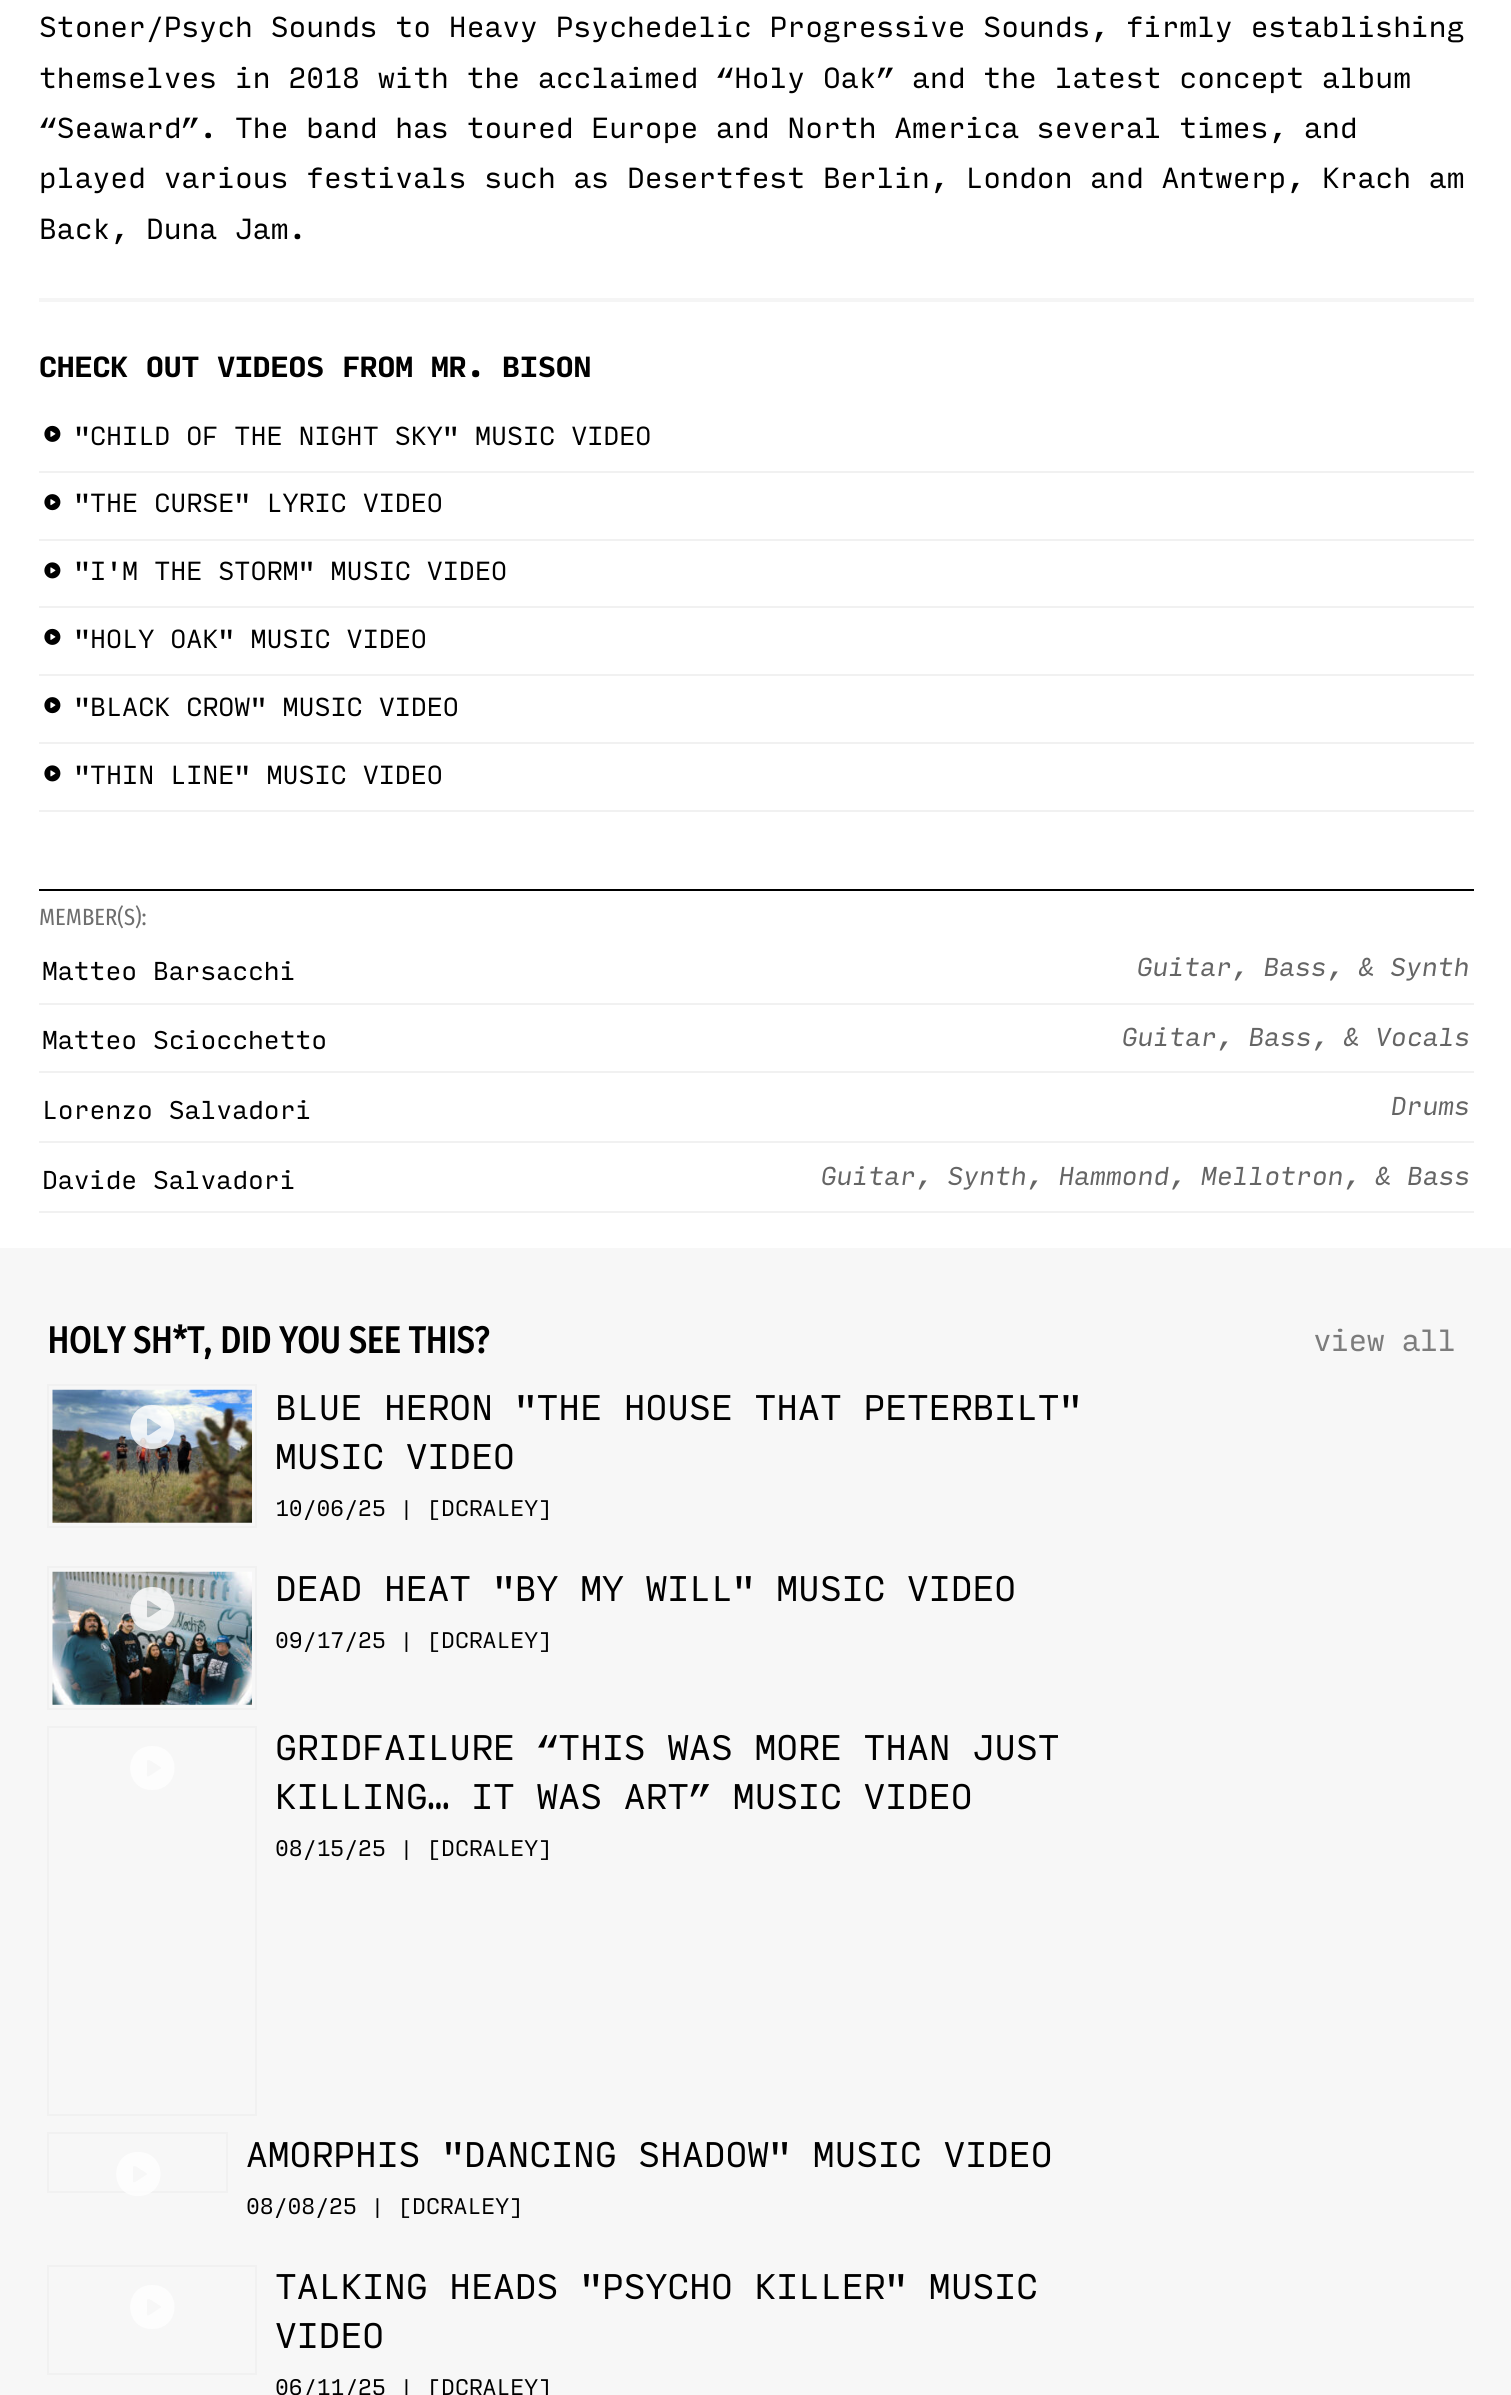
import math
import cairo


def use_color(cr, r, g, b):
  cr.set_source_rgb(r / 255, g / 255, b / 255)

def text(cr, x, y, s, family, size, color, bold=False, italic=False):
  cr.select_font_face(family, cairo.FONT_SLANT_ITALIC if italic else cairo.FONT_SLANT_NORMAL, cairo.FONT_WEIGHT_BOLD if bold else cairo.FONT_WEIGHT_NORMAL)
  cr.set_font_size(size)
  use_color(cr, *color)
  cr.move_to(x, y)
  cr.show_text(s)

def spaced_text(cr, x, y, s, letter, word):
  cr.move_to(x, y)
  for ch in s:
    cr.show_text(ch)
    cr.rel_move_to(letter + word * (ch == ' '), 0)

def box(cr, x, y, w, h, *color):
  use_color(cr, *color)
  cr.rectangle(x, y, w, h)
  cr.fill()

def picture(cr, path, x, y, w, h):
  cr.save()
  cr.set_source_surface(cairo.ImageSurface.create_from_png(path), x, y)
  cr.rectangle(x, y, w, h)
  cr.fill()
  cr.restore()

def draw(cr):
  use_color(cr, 247, 247, 247)
  cr.paint()
  box(cr, 0, 0, 1511, 1248, 255, 255, 255)
  box(cr, 39, 298, 1435, 4, 245, 245, 245)
  box(cr, 39, 471, 1435, 2, 241, 241, 241)
  picture(cr, "img_01.png", 44, 425, 17, 17)
  box(cr, 39, 539, 1435, 2, 241, 241, 241)
  picture(cr, "img_02.png", 44, 494, 17, 17)
  box(cr, 39, 606, 1435, 2, 241, 241, 241)
  picture(cr, "img_03.png", 44, 562, 17, 17)
  box(cr, 39, 674, 1435, 2, 241, 241, 241)
  picture(cr, "img_01.png", 44, 628, 17, 17)
  box(cr, 39, 742, 1435, 2, 241, 241, 241)
  picture(cr, "img_02.png", 44, 697, 17, 17)
  box(cr, 39, 810, 1435, 2, 241, 241, 241)
  picture(cr, "img_03.png", 44, 765, 17, 17)
  box(cr, 39, 889, 1435, 2, 0, 0, 0)
  box(cr, 39, 1003, 1435, 2, 241, 241, 241)
  box(cr, 39, 1071, 1435, 2, 241, 241, 241)
  box(cr, 39, 1141, 1435, 2, 241, 241, 241)
  box(cr, 39, 1211, 1435, 2, 241, 241, 241)
  cr.rectangle(48, 1385, 208, 142)
  cr.stroke()
  picture(cr, "img_04.png", 52, 1389, 200, 134)
  cr.set_source_rgba(1, 1, 1, 0.8)
  cr.new_path()
  cr.move_to(152, 1405)
  cr.curve_to(123, 1405, 123, 1449, 152, 1449)
  cr.curve_to(182, 1449, 182, 1405, 152, 1405)
  cr.close_path()
  cr.move_to(160, 1428)
  cr.line_to(151, 1434)
  cr.curve_to(146, 1437, 147, 1435, 147, 1429)
  cr.line_to(147, 1419)
  cr.curve_to(148, 1417, 154, 1422, 154, 1422)
  cr.curve_to(159, 1425, 163, 1427, 160, 1428)
  cr.close_path()
  cr.fill()
  cr.rectangle(48, 1567, 208, 142)
  use_color(cr, 241, 241, 241)
  cr.stroke()
  picture(cr, "img_05.png", 52, 1571, 200, 134)
  cr.set_source_rgba(1, 1, 1, 0.8)
  cr.new_path()
  cr.move_to(152, 1587)
  cr.curve_to(123, 1587, 123, 1631, 152, 1631)
  cr.curve_to(182, 1631, 182, 1587, 152, 1587)
  cr.close_path()
  cr.move_to(160, 1610)
  cr.line_to(151, 1616)
  cr.curve_to(146, 1619, 147, 1617, 147, 1611)
  cr.line_to(147, 1601)
  cr.curve_to(148, 1599, 154, 1604, 154, 1604)
  cr.curve_to(159, 1607, 163, 1609, 160, 1610)
  cr.close_path()
  cr.fill()
  cr.rectangle(48, 1727, 208, 388)
  use_color(cr, 241, 241, 241)
  cr.stroke()
  use_color(cr, 253, 253, 253)
  cr.new_path()
  cr.move_to(152, 1746)
  cr.curve_to(123, 1746, 123, 1790, 152, 1790)
  cr.curve_to(182, 1790, 182, 1746, 152, 1746)
  cr.close_path()
  cr.move_to(160, 1769)
  cr.line_to(151, 1775)
  cr.curve_to(146, 1778, 147, 1776, 147, 1770)
  cr.line_to(147, 1761)
  cr.curve_to(148, 1758, 154, 1763, 154, 1763)
  cr.curve_to(159, 1766, 163, 1768, 160, 1769)
  cr.close_path()
  cr.fill()
  cr.rectangle(48, 2133, 179, 59)
  use_color(cr, 241, 241, 241)
  cr.stroke()
  cr.set_source_rgba(1, 1, 1, 0.8)
  cr.new_path()
  cr.move_to(138, 2152)
  cr.curve_to(109, 2152, 109, 2196, 138, 2196)
  cr.curve_to(168, 2196, 168, 2152, 138, 2152)
  cr.close_path()
  cr.move_to(146, 2175)
  cr.line_to(137, 2181)
  cr.curve_to(132, 2184, 133, 2182, 133, 2176)
  cr.line_to(133, 2167)
  cr.curve_to(134, 2164, 140, 2169, 140, 2169)
  cr.curve_to(145, 2172, 149, 2174, 146, 2175)
  cr.close_path()
  cr.fill()
  cr.rectangle(48, 2266, 208, 108)
  use_color(cr, 241, 241, 241)
  cr.stroke()
  use_color(cr, 253, 253, 253)
  cr.new_path()
  cr.move_to(152, 2285)
  cr.curve_to(123, 2285, 123, 2329, 152, 2329)
  cr.curve_to(182, 2329, 182, 2285, 152, 2285)
  cr.close_path()
  cr.move_to(160, 2308)
  cr.line_to(151, 2314)
  cr.curve_to(146, 2317, 147, 2315, 147, 2309)
  cr.line_to(147, 2300)
  cr.curve_to(148, 2297, 154, 2302, 154, 2302)
  cr.curve_to(159, 2305, 163, 2307, 160, 2308)
  cr.close_path()
  cr.fill()
  text(cr, 39, 37, "Stoner/Psych Sounds to Heavy Psychedelic Progressive Sounds, firmly establishing", "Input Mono", 28, (0, 0, 0))
  text(cr, 39, 88, "themselves in 2018 with the acclaimed “Holy Oak” and the latest concept album", "Input Mono", 28, (0, 0, 0))
  text(cr, 39, 138, "“Seaward”. The band has toured Europe and North America several times, and", "Input Mono", 28, (0, 0, 0))
  text(cr, 39, 188, "played various festivals such as Desertfest Berlin, London and Antwerp, Krach am", "Input Mono", 28, (0, 0, 0))
  text(cr, 39, 239, "Back, Duna Jam.", "Input Mono", 28, (0, 0, 0))
  text(cr, 39, 377, "CHECK OUT VIDEOS FROM MR. BISON", "Input Mono", 28, (0, 0, 0), bold=True)
  text(cr, 74, 445, "\"CHILD OF THE NIGHT SKY\" MUSIC VIDEO", "Input Mono", 25.2, (0, 0, 0))
  text(cr, 74, 512, "\"THE CURSE\" LYRIC VIDEO", "Input Mono", 25.2, (0, 0, 0))
  text(cr, 74, 580, "\"I'M THE STORM\" MUSIC VIDEO", "Input Mono", 25.2, (0, 0, 0))
  text(cr, 74, 648, "\"HOLY OAK\" MUSIC VIDEO", "Input Mono", 25.2, (0, 0, 0))
  text(cr, 74, 716, "\"BLACK CROW\" MUSIC VIDEO", "Input Mono", 25.2, (0, 0, 0))
  text(cr, 74, 784, "\"THIN LINE\" MUSIC VIDEO", "Input Mono", 25.2, (0, 0, 0))
  text(cr, 39, 925, "MEMBER(S):", "Fira Sans Condensed", 23.5, (110, 110, 110))
  text(cr, 42, 980, "Matteo Barsacchi", "Input Mono", 24.9, (0, 0, 0))
  text(cr, 1137, 976, "Guitar, Bass, & Synth", "Input Mono", 24.9, (101, 101, 101), italic=True)
  text(cr, 42, 1049, "Matteo Sciocchetto", "Input Mono", 24.9, (0, 0, 0))
  text(cr, 1122, 1046, "Guitar, Bass, & Vocals", "Input Mono", 24.9, (101, 101, 101), italic=True)
  text(cr, 42, 1119, "Lorenzo Salvadori", "Input Mono", 24.9, (0, 0, 0))
  text(cr, 1391, 1115, "Drums", "Input Mono", 24.9, (101, 101, 101), italic=True)
  text(cr, 42, 1189, "Davide Salvadori", "Input Mono", 24.9, (0, 0, 0))
  text(cr, 821, 1185, "Guitar, Synth, Hammond, Mellotron, & Bass", "Input Mono", 24.9, (101, 101, 101), italic=True)
  text(cr, 47, 1353, "HOLY SH*T, DID YOU SEE THIS?", "Fira Sans Condensed", 37.25, (0, 0, 0), bold=True)
  cr.select_font_face("Input Mono")
  cr.set_font_size(29.5)
  use_color(cr, 124, 124, 124)
  spaced_text(cr, 1313, 1351, "view all", -1, 0)
  text(cr, 275, 1420, "BLUE HERON \"THE HOUSE THAT PETERBILT\"", "Input Mono", 34.25, (0, 0, 0))
  text(cr, 275, 1469, "MUSIC VIDEO", "Input Mono", 34.25, (0, 0, 0))
  text(cr, 275, 1516, "10/06/25 | [DCRALEY]", "Input Mono", 21.75, (0, 0, 0))
  text(cr, 275, 1601, "DEAD HEAT \"BY MY WILL\" MUSIC VIDEO", "Input Mono", 34.25, (0, 0, 0))
  text(cr, 275, 1648, "09/17/25 | [DCRALEY]", "Input Mono", 21.75, (0, 0, 0))
  text(cr, 275, 1760, "GRIDFAILURE “THIS WAS MORE THAN JUST", "Input Mono", 34.25, (0, 0, 0))
  text(cr, 275, 1809, "KILLING… IT WAS ART” MUSIC VIDEO", "Input Mono", 34.25, (0, 0, 0))
  text(cr, 275, 1856, "08/15/25 | [DCRALEY]", "Input Mono", 21.75, (0, 0, 0))
  text(cr, 246, 2167, "AMORPHIS \"DANCING SHADOW\" MUSIC VIDEO", "Input Mono", 34.25, (0, 0, 0))
  text(cr, 246, 2214, "08/08/25 | [DCRALEY]", "Input Mono", 21.75, (0, 0, 0))
  text(cr, 275, 2299, "TALKING HEADS \"PSYCHO KILLER\" MUSIC", "Input Mono", 34.25, (0, 0, 0))
  text(cr, 275, 2348, "VIDEO", "Input Mono", 34.25, (0, 0, 0))
  text(cr, 275, 2395, "06/11/25 | [DCRALEY]", "Input Mono", 21.75, (0, 0, 0))


surface = cairo.ImageSurface(cairo.FORMAT_RGB24, 1511, 2395)
cr = cairo.Context(surface)
options = cairo.FontOptions()
options.set_hint_metrics(cairo.HINT_METRICS_OFF)
options.set_hint_style(cairo.HINT_STYLE_NONE)
cr.set_font_options(options)
cr.set_miter_limit(4)
draw(cr)
surface.write_to_png("out.png")
